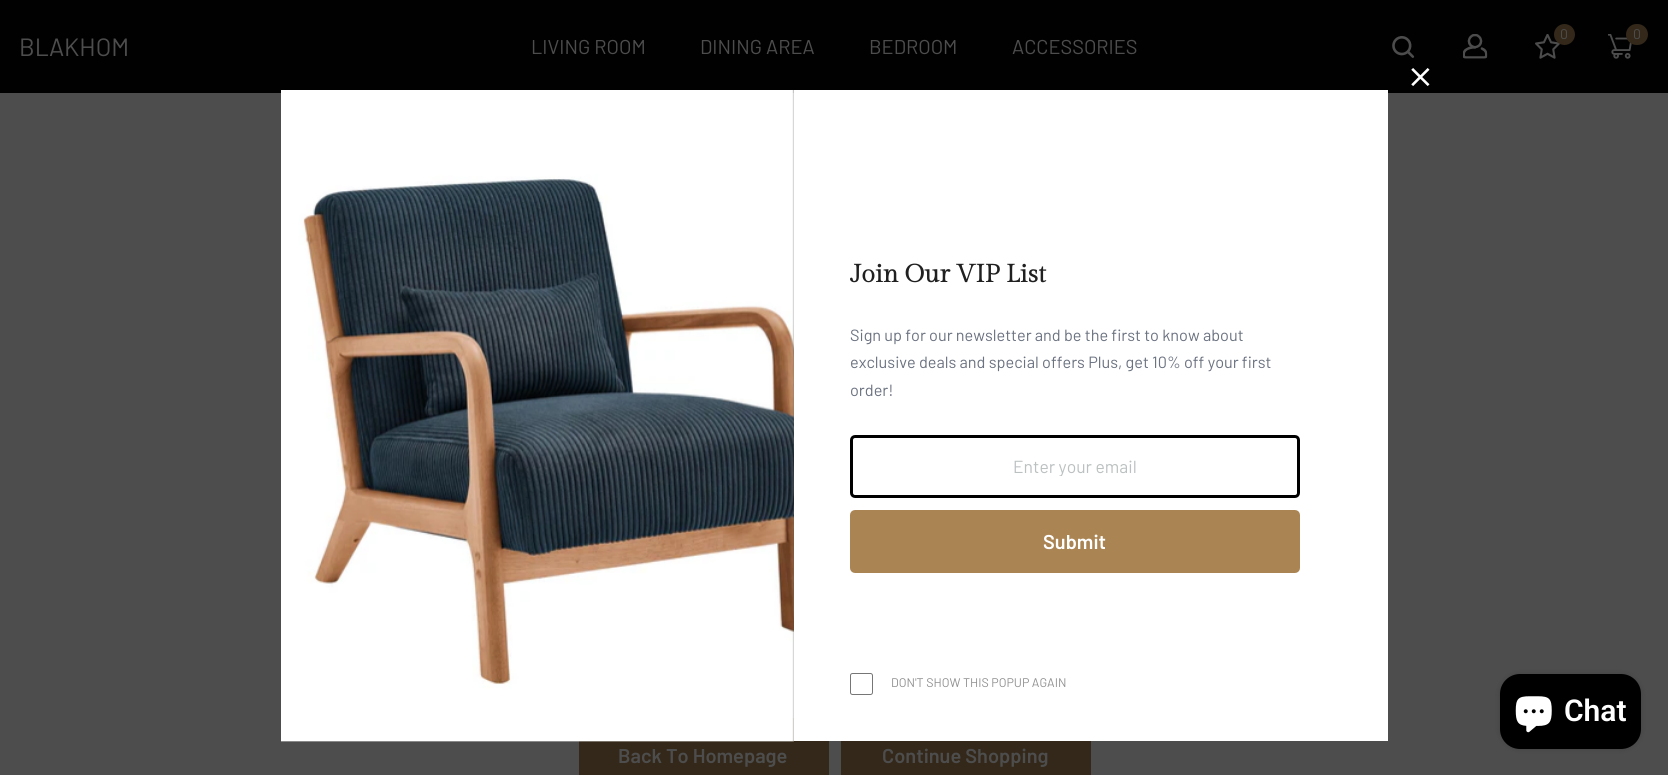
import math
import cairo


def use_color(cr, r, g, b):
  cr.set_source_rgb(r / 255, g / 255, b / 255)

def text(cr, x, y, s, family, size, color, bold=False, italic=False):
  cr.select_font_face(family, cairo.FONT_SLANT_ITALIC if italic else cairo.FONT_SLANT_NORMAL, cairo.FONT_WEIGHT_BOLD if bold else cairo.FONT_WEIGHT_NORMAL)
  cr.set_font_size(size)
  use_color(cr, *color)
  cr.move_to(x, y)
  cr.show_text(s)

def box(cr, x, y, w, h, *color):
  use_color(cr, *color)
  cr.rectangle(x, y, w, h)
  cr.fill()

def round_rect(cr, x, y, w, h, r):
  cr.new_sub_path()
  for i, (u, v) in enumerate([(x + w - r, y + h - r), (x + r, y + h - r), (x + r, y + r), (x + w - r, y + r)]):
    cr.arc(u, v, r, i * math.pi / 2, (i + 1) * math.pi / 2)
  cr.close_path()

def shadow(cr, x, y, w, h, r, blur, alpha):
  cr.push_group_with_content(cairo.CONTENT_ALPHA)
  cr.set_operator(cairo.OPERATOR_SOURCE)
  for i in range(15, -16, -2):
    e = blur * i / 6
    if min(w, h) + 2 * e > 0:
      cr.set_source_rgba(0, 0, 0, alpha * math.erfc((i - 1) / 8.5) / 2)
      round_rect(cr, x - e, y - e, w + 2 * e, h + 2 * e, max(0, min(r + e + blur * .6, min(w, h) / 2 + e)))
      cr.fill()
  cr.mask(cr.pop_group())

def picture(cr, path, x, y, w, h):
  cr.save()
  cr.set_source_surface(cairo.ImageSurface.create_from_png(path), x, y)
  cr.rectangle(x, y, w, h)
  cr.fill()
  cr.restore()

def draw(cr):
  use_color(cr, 77, 77, 77)
  cr.paint()
  box(cr, 0, 0, 1668, 93, 1, 1, 1)
  picture(cr, "img_01.png", 1392, 36, 23, 22)
  picture(cr, "img_02.png", 1463, 34, 25, 25)
  picture(cr, "img_03.png", 1535, 34, 25, 25)
  use_color(cr, 51, 40, 25)
  cr.arc(1564.5, 34.5, 10.5, 0, 2 * math.pi)
  cr.fill()
  picture(cr, "img_04.png", 1608, 34, 24, 25)
  round_rect(cr, 1626, 24, 22, 21, 10.5)
  cr.fill()
  picture(cr, "img_05.png", 1411, 68, 19, 18)
  cr.rectangle(580.5, 719.5, 247, 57)
  cr.fill_preserve()
  cr.set_line_width(3)
  cr.stroke()
  picture(cr, "img_06.png", 281, 90, 513, 652)
  box(cr, 844, 741, 244, 34, 51, 40, 25)
  cr.rectangle(842.5, 719.5, 247, 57)
  cr.stroke()
  box(cr, 794, 90, 594, 651, 255, 255, 255)
  round_rect(cr, 851.5, 436.5, 447, 60, 3.5)
  use_color(cr, 0, 0, 0)
  cr.stroke()
  use_color(cr, 170, 132, 83)
  round_rect(cr, 851.5, 511.5, 447, 60, 3.5)
  cr.fill_preserve()
  cr.stroke()
  round_rect(cr, 850.5, 673.5, 22, 21, 2)
  use_color(cr, 118, 118, 118)
  cr.set_line_width(1)
  cr.stroke()
  use_color(cr, 0, 0, 0)
  shadow(cr, 1500, 674, 141, 75, 20, 3, 0.15)
  use_color(cr, 0, 0, 0)
  round_rect(cr, 1500, 674, 141, 75, 20)
  cr.fill()
  picture(cr, "img_07.png", 1515, 696, 37, 37)
  text(cr, 1560, 39, "0", "Barlow", 14, (77, 77, 77))
  text(cr, 1633, 39, "0", "Barlow", 14, (77, 77, 77))
  text(cr, 19, 56, "BLAKHOM", "Barlow", 25, (77, 77, 77))
  text(cr, 531, 54, "LIVING ROOM", "Barlow", 20, (77, 77, 77))
  text(cr, 700, 54, "DINING AREA", "Barlow", 20, (77, 77, 77))
  text(cr, 869, 54, "BEDROOM", "Barlow", 20, (77, 77, 77))
  text(cr, 1012, 54, "ACCESSORIES", "Barlow", 20, (77, 77, 77))
  text(cr, 850, 282, "Join Our VIP List", "Gilda Display", 25, (32, 32, 32), bold=True)
  text(cr, 850, 341, "Sign up for our newsletter and be the first to know about", "Barlow", 16.25, (107, 114, 128))
  text(cr, 850, 368, "exclusive deals and special offers Plus, get 10% off your first", "Barlow", 16.25, (107, 114, 128))
  text(cr, 850, 396, "order!", "Barlow", 16.25, (107, 114, 128))
  cr.save()
  cr.rectangle(871, 455, 408, 21)
  cr.clip()
  text(cr, 1013, 473, "Enter your email", "Barlow", 17.5, (187, 192, 193))
  cr.restore()
  text(cr, 1043, 549, "Submit", "Barlow SemiBold", 20, (255, 255, 255))
  text(cr, 891, 687, "DON'T SHOW THIS POPUP AGAIN", "Barlow", 12.5, (144, 144, 144))
  text(cr, 1564, 721, "Chat", "Roboto SemiBold", 30, (255, 255, 255))
  text(cr, 618, 763, "Back To Homepage", "Barlow SemiBold", 20, (77, 77, 77))
  text(cr, 882, 763, "Continue Shopping", "Barlow SemiBold", 20, (77, 77, 77))


surface = cairo.ImageSurface(cairo.FORMAT_RGB24, 1668, 775)
cr = cairo.Context(surface)
options = cairo.FontOptions()
options.set_hint_metrics(cairo.HINT_METRICS_OFF)
options.set_hint_style(cairo.HINT_STYLE_NONE)
cr.set_font_options(options)
cr.set_miter_limit(4)
draw(cr)
surface.write_to_png("out.png")
